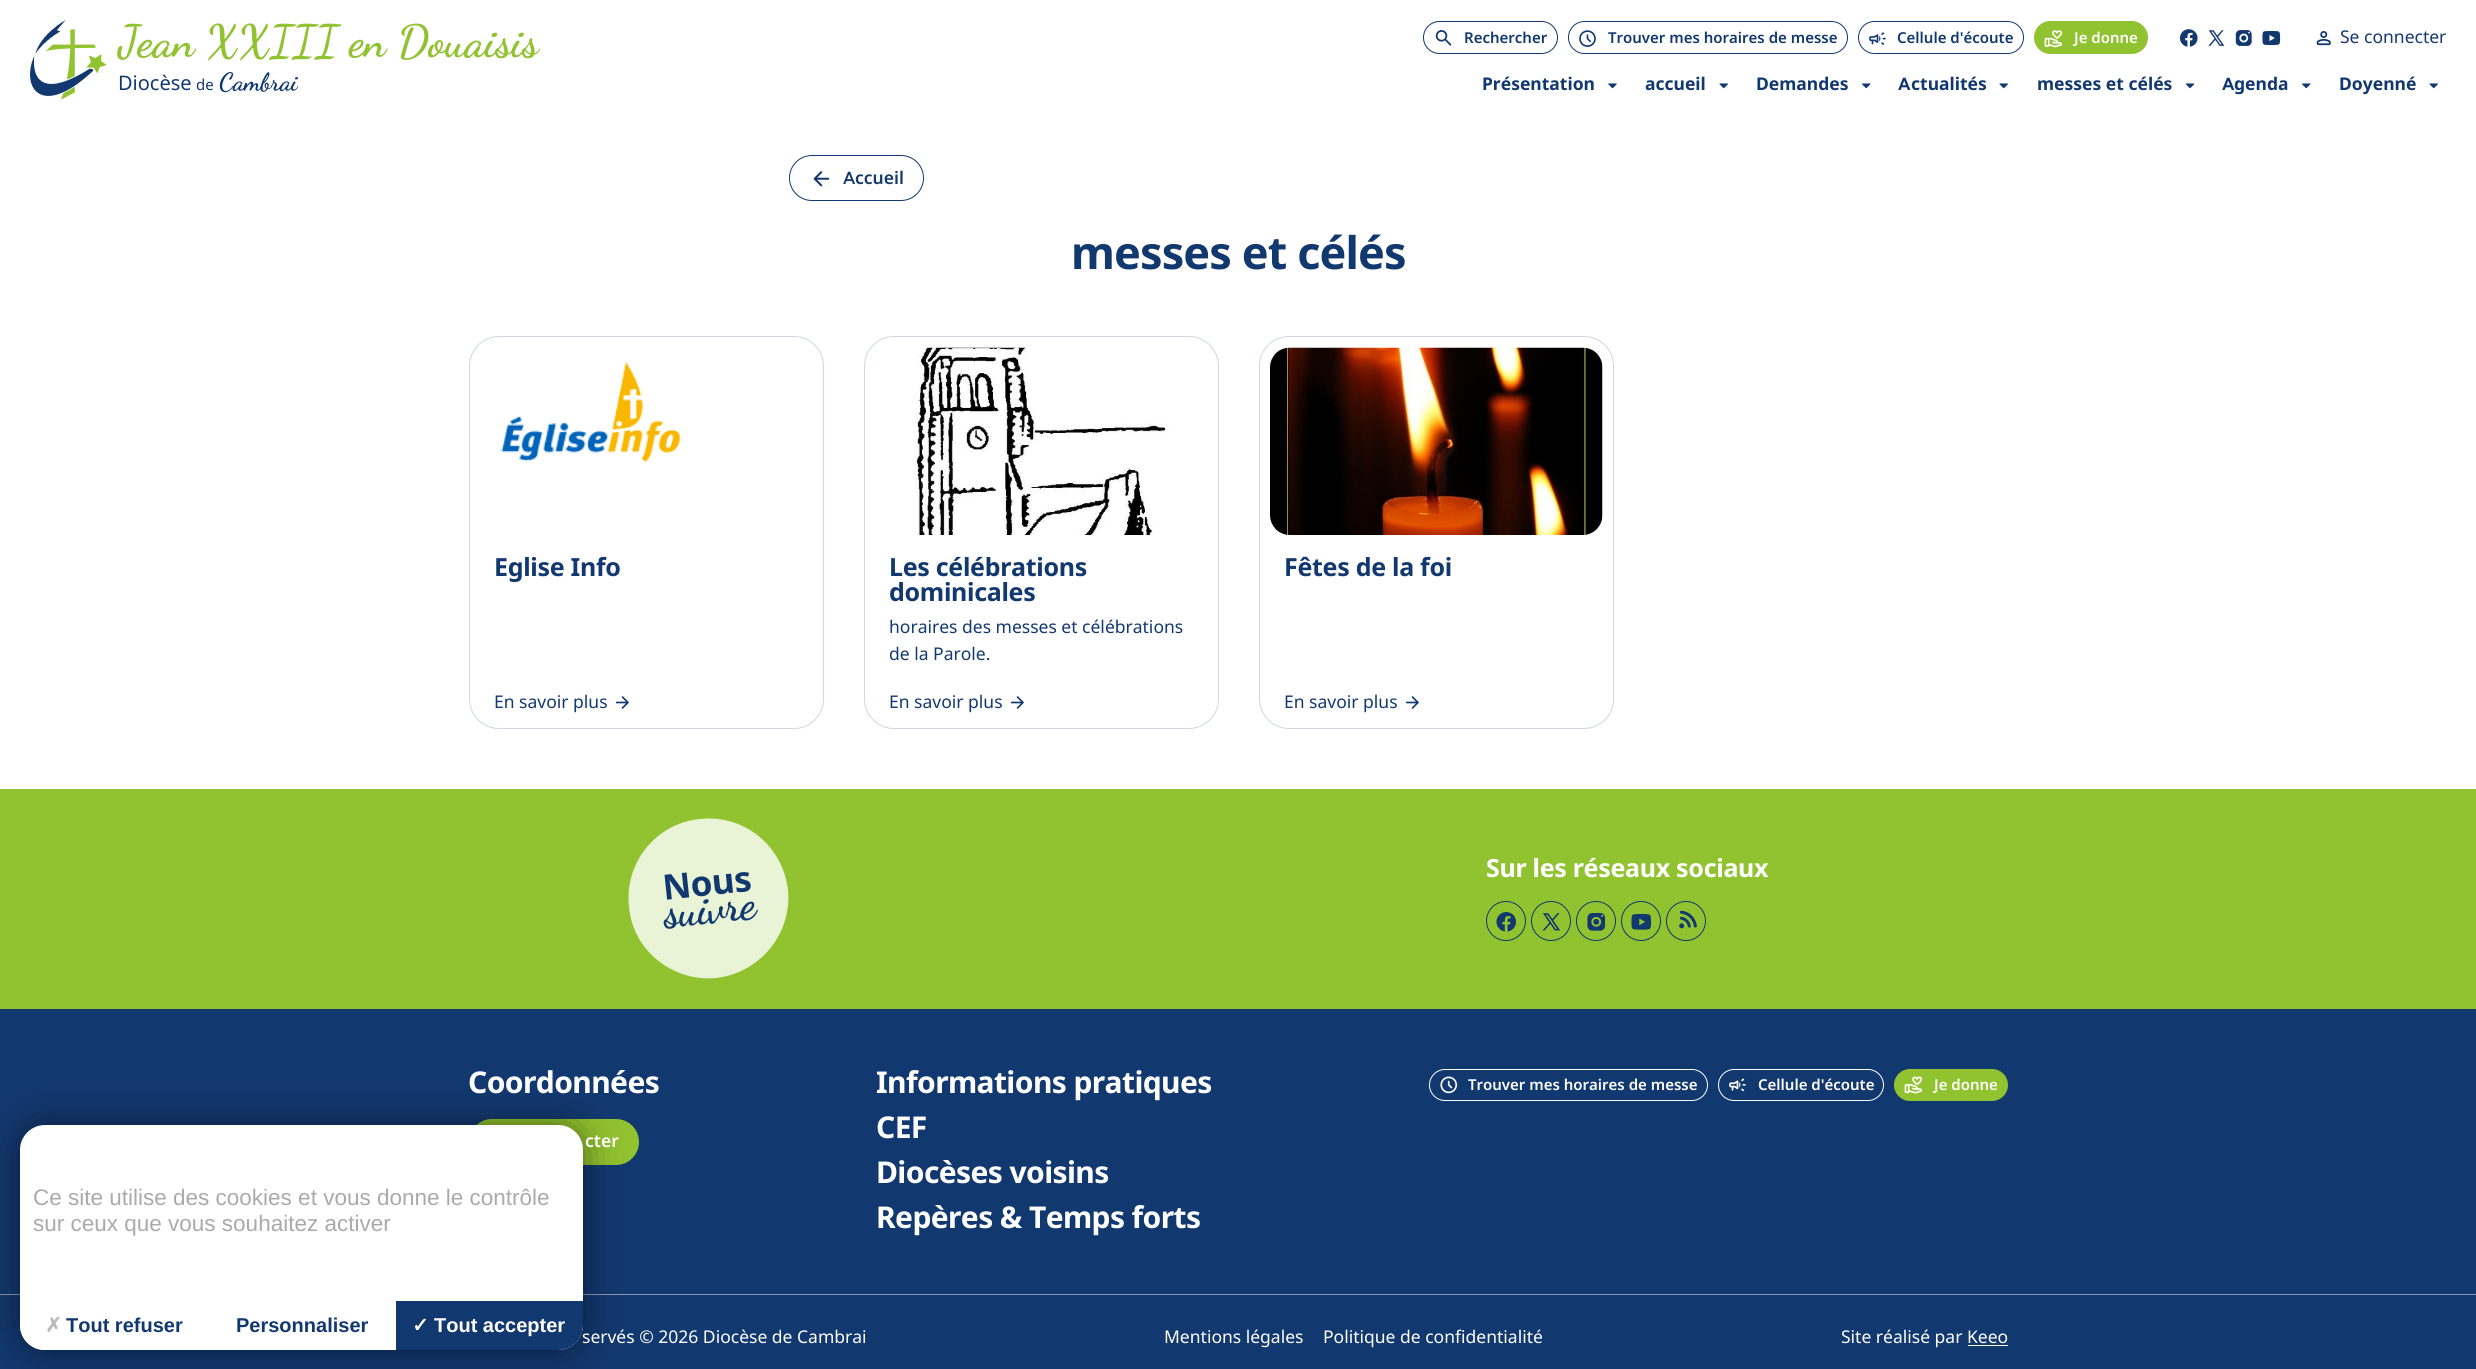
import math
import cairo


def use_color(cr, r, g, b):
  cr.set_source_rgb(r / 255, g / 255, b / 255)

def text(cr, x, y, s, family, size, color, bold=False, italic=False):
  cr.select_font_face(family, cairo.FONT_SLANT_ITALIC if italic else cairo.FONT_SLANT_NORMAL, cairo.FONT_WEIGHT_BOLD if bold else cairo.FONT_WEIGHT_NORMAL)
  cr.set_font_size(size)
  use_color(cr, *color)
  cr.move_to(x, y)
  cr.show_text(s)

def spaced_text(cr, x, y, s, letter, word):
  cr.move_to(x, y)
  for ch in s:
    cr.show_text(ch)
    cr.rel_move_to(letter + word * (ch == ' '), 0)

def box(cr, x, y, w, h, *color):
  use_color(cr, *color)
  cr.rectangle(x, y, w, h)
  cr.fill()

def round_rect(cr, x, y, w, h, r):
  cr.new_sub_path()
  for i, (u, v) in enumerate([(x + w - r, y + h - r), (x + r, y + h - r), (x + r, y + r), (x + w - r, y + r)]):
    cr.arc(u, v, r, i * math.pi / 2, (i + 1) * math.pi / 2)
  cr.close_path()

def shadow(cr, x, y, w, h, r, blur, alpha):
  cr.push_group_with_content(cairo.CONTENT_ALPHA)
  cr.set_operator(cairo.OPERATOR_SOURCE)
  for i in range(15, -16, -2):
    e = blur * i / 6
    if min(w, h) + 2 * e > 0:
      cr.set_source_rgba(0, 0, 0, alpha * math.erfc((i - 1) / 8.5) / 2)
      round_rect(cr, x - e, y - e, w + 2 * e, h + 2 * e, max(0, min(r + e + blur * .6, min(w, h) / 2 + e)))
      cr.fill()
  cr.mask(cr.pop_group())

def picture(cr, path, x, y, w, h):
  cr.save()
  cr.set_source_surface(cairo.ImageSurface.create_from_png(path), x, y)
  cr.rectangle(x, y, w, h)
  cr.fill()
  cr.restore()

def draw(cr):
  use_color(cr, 255, 255, 255)
  cr.paint()
  picture(cr, "img_01.png", 30, 20, 77, 80)
  round_rect(cr, 1423.5, 21.5, 134, 32, 16)
  use_color(cr, 18, 56, 112)
  cr.set_line_width(1)
  cr.stroke()
  picture(cr, "img_02.png", 1435, 30, 17, 16)
  round_rect(cr, 1568.5, 21.5, 279, 32, 16)
  cr.stroke()
  picture(cr, "img_03.png", 1579, 30, 17, 17)
  round_rect(cr, 1858.5, 21.5, 165, 32, 16)
  cr.stroke()
  picture(cr, "img_04.png", 1869, 32, 17, 13)
  use_color(cr, 145, 194, 47)
  round_rect(cr, 2034, 21, 114, 33, 16.5)
  cr.fill()
  picture(cr, "img_05.png", 2044, 30, 19, 18)
  picture(cr, "img_06.png", 2179, 29, 19, 18)
  picture(cr, "img_07.png", 2208, 30, 17, 16)
  picture(cr, "img_08.png", 2235, 30, 17, 16)
  picture(cr, "img_09.png", 2262, 30, 19, 16)
  picture(cr, "img_10.png", 2316, 31, 15, 15)
  picture(cr, "img_11.png", 1608, 83, 9, 6)
  picture(cr, "img_12.png", 1719, 83, 9, 6)
  picture(cr, "img_13.png", 1862, 83, 9, 6)
  picture(cr, "img_12.png", 1999, 83, 9, 6)
  picture(cr, "img_14.png", 2185, 83, 10, 6)
  picture(cr, "img_13.png", 2302, 83, 9, 6)
  picture(cr, "img_12.png", 2429, 83, 9, 6)
  round_rect(cr, 789.5, 155.5, 134, 45, 22.5)
  use_color(cr, 18, 56, 112)
  cr.stroke()
  picture(cr, "img_15.png", 813, 171, 17, 16)
  round_rect(cr, 469.5, 336.5, 354, 392, 29.5)
  use_color(cr, 208, 215, 226)
  cr.stroke()
  picture(cr, "img_16.png", 500, 361, 181, 102)
  picture(cr, "img_17.png", 615, 696, 14, 13)
  round_rect(cr, 864.5, 336.5, 354, 392, 29.5)
  cr.stroke()
  picture(cr, "img_18.png", 915, 347, 254, 188)
  picture(cr, "img_17.png", 1010, 696, 14, 13)
  round_rect(cr, 1259.5, 336.5, 354, 392, 29.5)
  cr.stroke()
  picture(cr, "img_19.png", 1270, 347, 333, 188)
  picture(cr, "img_17.png", 1405, 696, 14, 13)
  box(cr, 0, 789, 2476, 220, 145, 194, 47)
  cr.arc(1506, 921, 19.5, 0, 2 * math.pi)
  use_color(cr, 18, 56, 112)
  cr.stroke()
  picture(cr, "img_20.png", 1496, 912, 20, 20)
  cr.arc(1551, 921, 19.5, 0, 2 * math.pi)
  cr.stroke()
  picture(cr, "img_21.png", 1542, 913, 18, 18)
  cr.arc(1596, 921, 19.5, 0, 2 * math.pi)
  cr.stroke()
  picture(cr, "img_22.png", 1587, 913, 19, 18)
  cr.arc(1641, 921, 19.5, 0, 2 * math.pi)
  cr.stroke()
  picture(cr, "img_23.png", 1631, 914, 21, 16)
  cr.arc(1686, 921, 19.5, 0, 2 * math.pi)
  cr.stroke()
  picture(cr, "img_24.png", 1679, 910, 18, 19)
  use_color(cr, 233, 243, 213)
  cr.new_path()
  cr.move_to(700, 819)
  cr.curve_to(744, 814, 783, 846, 788, 890)
  cr.curve_to(792, 934, 760, 973, 716, 978)
  cr.curve_to(673, 982, 633, 951, 629, 907)
  cr.curve_to(624, 863, 656, 823, 700, 819)
  cr.close_path()
  cr.fill()
  box(cr, 0, 1009, 2476, 360, 18, 56, 112)
  use_color(cr, 145, 194, 47)
  round_rect(cr, 469, 1119, 170, 46, 23)
  cr.fill()
  box(cr, 0, 1294, 2476, 1, 137, 156, 184)
  use_color(cr, 0, 0, 0)
  shadow(cr, 20, 1125, 563, 225, 25, 19, 0.5)
  use_color(cr, 255, 255, 255)
  round_rect(cr, 20, 1125, 563, 225, 25)
  cr.fill()
  cr.new_path()
  cr.move_to(20, 1301)
  cr.line_to(208, 1301)
  cr.line_to(208, 1350)
  cr.line_to(45, 1350)
  cr.curve_to(31, 1350, 20, 1339, 20, 1325)
  cr.close_path()
  cr.fill()
  round_rect(cr, 1429.5, 1069.5, 278, 31, 15.5)
  cr.stroke()
  picture(cr, "img_25.png", 1440, 1076, 18, 18)
  round_rect(cr, 1718.5, 1069.5, 165, 31, 15.5)
  cr.stroke()
  picture(cr, "img_26.png", 1729, 1078, 17, 14)
  use_color(cr, 145, 194, 47)
  round_rect(cr, 1894, 1069, 114, 32, 16)
  cr.fill()
  picture(cr, "img_27.png", 1904, 1076, 19, 18)
  box(cr, 1968, 1345, 40, 1, 255, 255, 255)
  text(cr, 118, 56, "Jean XXIII en Douaisis", "Dancing Script", 45, (145, 194, 47), bold=True)
  text(cr, 118, 90, "Diocèse", "Noto Sans", 20, (18, 56, 112))
  text(cr, 196, 90, "de", "Noto Sans", 15, (18, 56, 112))
  text(cr, 219, 90, "Cambrai", "Dancing Script", 25, (18, 56, 112), bold=True)
  text(cr, 1464, 43, "Rechercher", "Noto Sans SemiBold", 15, (18, 56, 112))
  text(cr, 1608, 43, "Trouver mes horaires de messe", "Noto Sans SemiBold", 15, (18, 56, 112))
  text(cr, 1897, 43, "Cellule d'écoute", "Noto Sans SemiBold", 15, (18, 56, 112))
  text(cr, 2074, 43, "Je donne", "Noto Sans SemiBold", 15, (255, 255, 255))
  text(cr, 2340, 43, "Se connecter", "Noto Sans", 17.5, (18, 56, 112))
  text(cr, 1482, 90, "Présentation", "Noto Sans", 17.5, (18, 56, 112), bold=True)
  text(cr, 1645, 90, "accueil", "Noto Sans", 17.5, (18, 56, 112), bold=True)
  text(cr, 1756, 90, "Demandes", "Noto Sans", 17.5, (18, 56, 112), bold=True)
  text(cr, 1898, 90, "A", "Figtree", 17.5, (18, 56, 112), bold=True)
  text(cr, 1911, 90, "ctualités", "Noto Sans", 17.5, (18, 56, 112), bold=True)
  text(cr, 2037, 90, "messes et célés", "Noto Sans", 17.5, (18, 56, 112), bold=True)
  text(cr, 2222, 90, "A", "Figtree", 17.5, (18, 56, 112), bold=True)
  text(cr, 2234, 90, "genda", "Noto Sans", 17.5, (18, 56, 112), bold=True)
  text(cr, 2339, 90, "Doyenné", "Noto Sans", 17.5, (18, 56, 112), bold=True)
  text(cr, 843, 184, "A", "Figtree SemiBold", 17.5, (18, 56, 112))
  text(cr, 855, 184, "ccueil", "Noto Sans SemiBold", 17.5, (18, 56, 112))
  cr.select_font_face("Noto Sans", cairo.FONT_SLANT_NORMAL, cairo.FONT_WEIGHT_BOLD)
  cr.set_font_size(45)
  spaced_text(cr, 1071, 269, "messes et célés", -0.9, 0)
  cr.set_font_size(25)
  spaced_text(cr, 494, 576, "Eglise Info", -0.3, 0)
  text(cr, 494, 708, "En savoir plus", "Noto Sans", 17.5, (18, 56, 112))
  cr.select_font_face("Noto Sans", cairo.FONT_SLANT_NORMAL, cairo.FONT_WEIGHT_BOLD)
  cr.set_font_size(25)
  spaced_text(cr, 889, 576, "Les célébrations", -0.3, 0)
  spaced_text(cr, 889, 601, "dominicales", -0.3, 0)
  text(cr, 889, 633, "horaires des messes et célébrations", "Noto Sans", 17.5, (18, 56, 112))
  text(cr, 889, 660, "de la Parole.", "Noto Sans", 17.5, (18, 56, 112))
  text(cr, 889, 708, "En savoir plus", "Noto Sans", 17.5, (18, 56, 112))
  cr.select_font_face("Noto Sans", cairo.FONT_SLANT_NORMAL, cairo.FONT_WEIGHT_BOLD)
  cr.set_font_size(25)
  spaced_text(cr, 1284, 576, "Fêtes de la foi", -0.3, 0)
  text(cr, 1284, 708, "En savoir plus", "Noto Sans", 17.5, (18, 56, 112))
  cr.select_font_face("Noto Sans", cairo.FONT_SLANT_NORMAL, cairo.FONT_WEIGHT_BOLD)
  cr.set_font_size(25)
  use_color(cr, 255, 255, 255)
  spaced_text(cr, 1486, 877, "Sur les réseaux sociaux", -0.3, 0)
  cr.set_font_size(35)
  use_color(cr, 18, 56, 112)
  cr.save()
  cr.translate(664, 900)
  cr.rotate(-6 * math.pi / 180)
  spaced_text(cr, 0, 0, "Nous", -0.5, 0)
  cr.restore()
  cr.select_font_face("Dancing Script", cairo.FONT_SLANT_NORMAL, cairo.FONT_WEIGHT_BOLD)
  cr.set_font_size(45)
  cr.save()
  cr.translate(665, 927)
  cr.rotate(-6 * math.pi / 180)
  spaced_text(cr, 0, 0, "suivre", -0.9, 0)
  cr.restore()
  text(cr, 33, 1205, "Ce site utilise des cookies et vous donne le contrôle", "Liberation Sans", 22.5, (170, 170, 170))
  text(cr, 33, 1231, "sur ceux que vous souhaitez activer", "Liberation Sans", 22.5, (170, 170, 170))
  text(cr, 45, 1332, "✗", "DejaVu Sans", 20, (187, 187, 187), bold=True)
  text(cr, 66, 1332, "Tout refuser", "Liberation Sans", 20, (18, 56, 112), bold=True)
  text(cr, 236, 1332, "Personnaliser", "Liberation Sans", 20, (18, 56, 112), bold=True)
  cr.select_font_face("Noto Sans", cairo.FONT_SLANT_NORMAL, cairo.FONT_WEIGHT_BOLD)
  cr.set_font_size(30)
  use_color(cr, 255, 255, 255)
  spaced_text(cr, 468, 1093, "Coordonnées", -0.6, 0)
  text(cr, 585, 1147, "cter", "Noto Sans SemiBold", 17.5, (255, 255, 255))
  cr.select_font_face("Noto Sans", cairo.FONT_SLANT_NORMAL, cairo.FONT_WEIGHT_BOLD)
  cr.set_font_size(30)
  spaced_text(cr, 876, 1093, "Informations pratiques", -0.6, 0)
  spaced_text(cr, 876, 1138, "CEF", -0.6, 0)
  spaced_text(cr, 876, 1183, "Diocèses voisins", -0.6, 0)
  spaced_text(cr, 876, 1228, "Repères & Temps forts", -0.6, 0)
  text(cr, 1468, 1090, "Trouver mes horaires de messe", "Noto Sans SemiBold", 15, (255, 255, 255))
  text(cr, 1758, 1090, "Cellule d'écoute", "Noto Sans SemiBold", 15, (255, 255, 255))
  text(cr, 1934, 1090, "Je donne", "Noto Sans SemiBold", 15, (255, 255, 255))
  text(cr, 582, 1343, "servés © 2026 Diocèse de Cambrai", "Noto Sans", 17.5, (255, 255, 255))
  use_color(cr, 18, 56, 112)
  cr.new_path()
  cr.move_to(395, 1301)
  cr.line_to(583, 1301)
  cr.line_to(583, 1325)
  cr.curve_to(583, 1339, 572, 1350, 558, 1350)
  cr.line_to(395, 1350)
  cr.close_path()
  cr.fill()
  box(cr, 395, 1301, 1, 49, 255, 255, 255)
  text(cr, 434, 1332, "Tout accepter", "Liberation Sans", 20, (255, 255, 255), bold=True)
  text(cr, 412, 1332, "✓", "DejaVu Sans", 20, (255, 255, 255), bold=True)
  text(cr, 1164, 1343, "Mentions légales", "Noto Sans", 17.5, (255, 255, 255))
  text(cr, 1323, 1343, "Politique de confidentialité", "Noto Sans", 17.5, (255, 255, 255))
  text(cr, 1841, 1343, "Site réalisé par Keeo", "Noto Sans", 17.5, (255, 255, 255))


surface = cairo.ImageSurface(cairo.FORMAT_RGB24, 2476, 1369)
cr = cairo.Context(surface)
options = cairo.FontOptions()
options.set_hint_metrics(cairo.HINT_METRICS_OFF)
options.set_hint_style(cairo.HINT_STYLE_NONE)
cr.set_font_options(options)
cr.set_miter_limit(4)
draw(cr)
surface.write_to_png("out.png")
